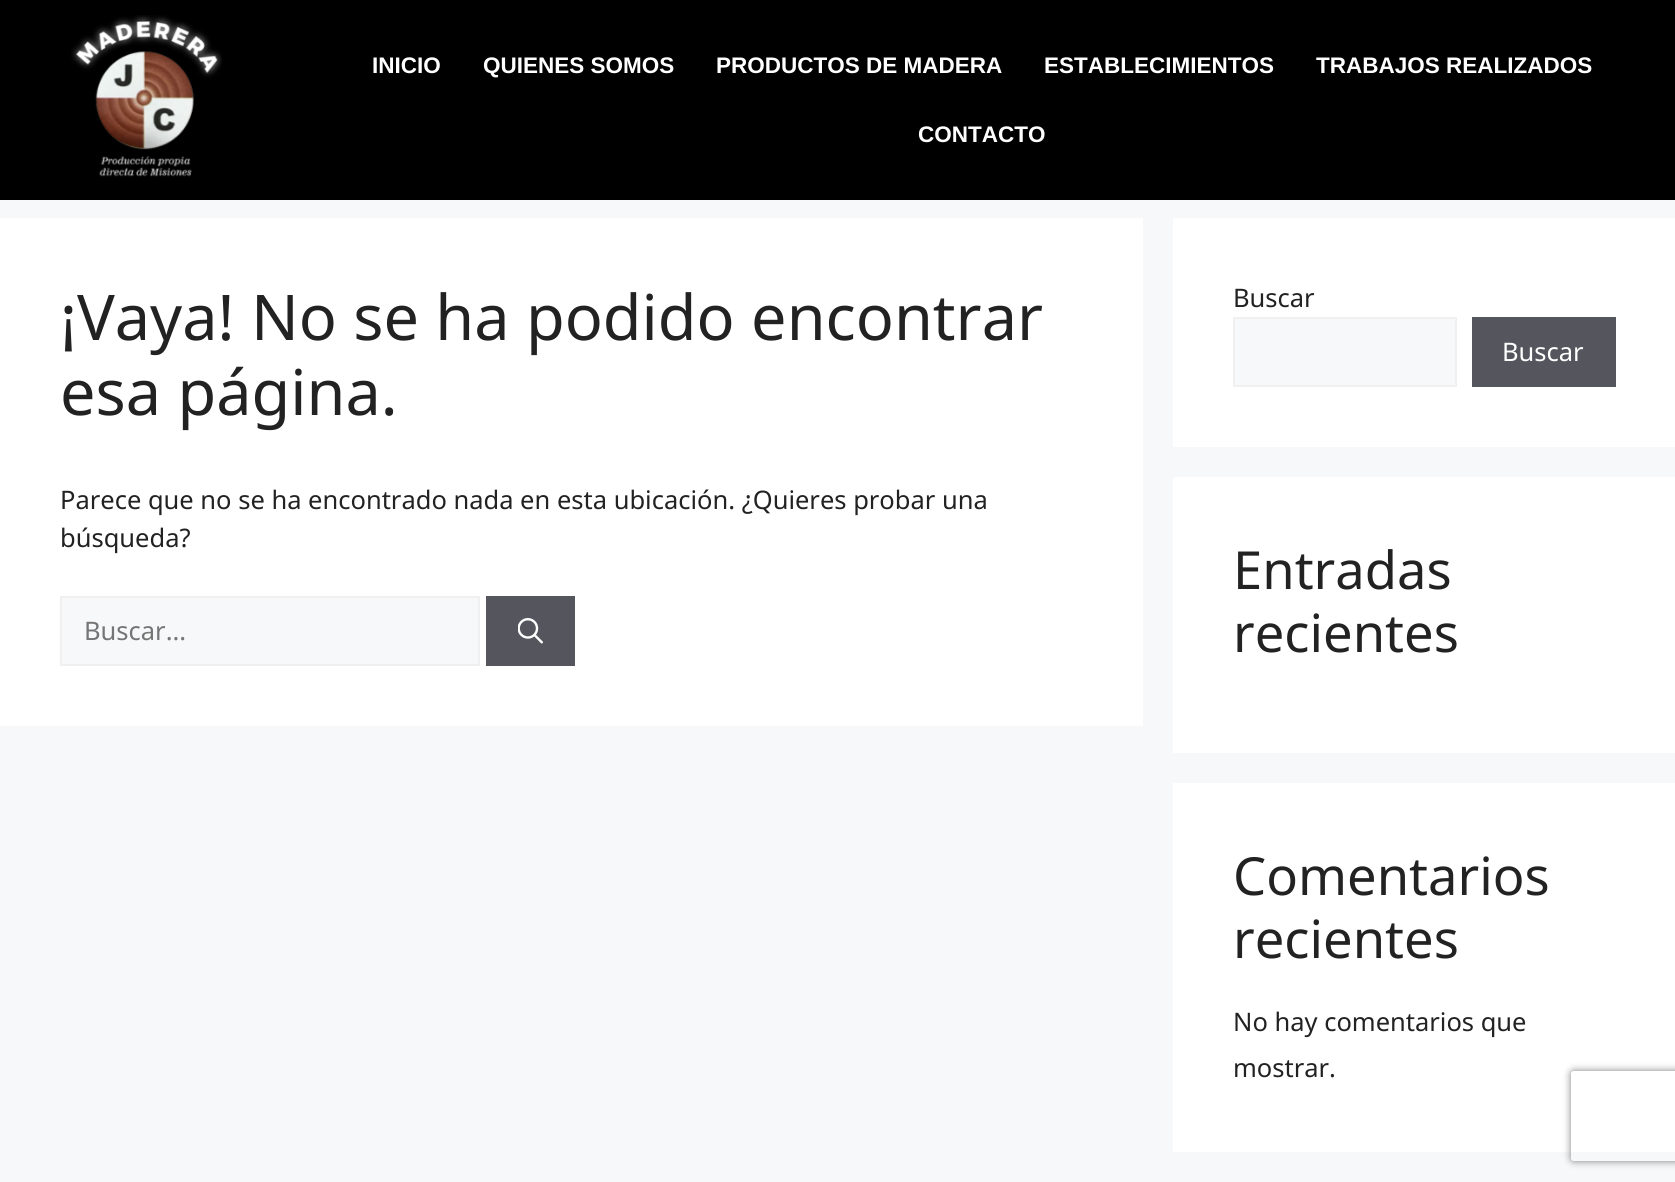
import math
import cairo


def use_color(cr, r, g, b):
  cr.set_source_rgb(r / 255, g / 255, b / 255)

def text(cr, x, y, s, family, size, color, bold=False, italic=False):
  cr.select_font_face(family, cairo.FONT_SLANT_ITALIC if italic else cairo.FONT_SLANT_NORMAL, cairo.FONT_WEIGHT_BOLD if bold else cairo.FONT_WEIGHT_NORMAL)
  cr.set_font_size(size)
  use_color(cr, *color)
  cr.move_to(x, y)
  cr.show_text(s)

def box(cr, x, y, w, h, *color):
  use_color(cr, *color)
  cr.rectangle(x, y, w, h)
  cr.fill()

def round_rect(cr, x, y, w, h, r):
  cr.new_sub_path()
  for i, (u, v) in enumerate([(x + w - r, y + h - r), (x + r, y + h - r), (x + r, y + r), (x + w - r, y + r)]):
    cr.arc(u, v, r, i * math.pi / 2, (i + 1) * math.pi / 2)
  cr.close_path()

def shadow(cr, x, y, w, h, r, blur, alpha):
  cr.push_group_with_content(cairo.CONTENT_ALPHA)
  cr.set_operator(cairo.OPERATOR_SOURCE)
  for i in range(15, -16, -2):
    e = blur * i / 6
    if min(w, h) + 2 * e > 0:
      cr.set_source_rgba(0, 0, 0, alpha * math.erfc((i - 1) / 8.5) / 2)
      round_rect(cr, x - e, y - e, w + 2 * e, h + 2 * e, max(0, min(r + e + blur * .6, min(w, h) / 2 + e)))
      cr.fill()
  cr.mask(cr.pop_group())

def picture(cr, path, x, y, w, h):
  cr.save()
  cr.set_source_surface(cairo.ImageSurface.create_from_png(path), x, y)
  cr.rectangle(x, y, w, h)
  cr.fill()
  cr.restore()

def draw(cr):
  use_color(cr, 247, 248, 249)
  cr.paint()
  box(cr, 0, 0, 1675, 200, 0, 0, 0)
  picture(cr, "img_01.png", 71, 15, 151, 162)
  box(cr, 0, 218, 1143, 508, 255, 255, 255)
  use_color(cr, 247, 248, 249)
  cr.rectangle(61, 597, 418, 68)
  cr.fill_preserve()
  use_color(cr, 240, 240, 240)
  cr.stroke()
  box(cr, 486, 596, 89, 70, 85, 85, 94)
  picture(cr, "img_02.png", 518, 618, 25, 26)
  box(cr, 1173, 218, 502, 229, 255, 255, 255)
  use_color(cr, 247, 248, 249)
  cr.rectangle(1234, 318, 222, 68)
  cr.fill_preserve()
  use_color(cr, 240, 240, 240)
  cr.stroke()
  box(cr, 1472, 317, 144, 70, 85, 85, 94)
  box(cr, 1173, 477, 502, 276, 255, 255, 255)
  box(cr, 1173, 783, 502, 369, 255, 255, 255)
  cr.save()
  cr.set_fill_rule(cairo.FILL_RULE_EVEN_ODD)
  cr.new_path()
  cr.move_to(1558, 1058)
  cr.line_to(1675, 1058)
  cr.line_to(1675, 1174)
  cr.line_to(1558, 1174)
  cr.close_path()
  cr.move_to(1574, 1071)
  cr.line_to(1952, 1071)
  cr.curve_to(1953.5, 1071, 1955, 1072.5, 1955, 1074)
  cr.line_to(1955, 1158)
  cr.curve_to(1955, 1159.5, 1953.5, 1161, 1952, 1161)
  cr.line_to(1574, 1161)
  cr.curve_to(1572.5, 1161, 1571, 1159.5, 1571, 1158)
  cr.line_to(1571, 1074)
  cr.curve_to(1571, 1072.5, 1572.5, 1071, 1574, 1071)
  cr.close_path()
  cr.clip()
  use_color(cr, 128, 128, 128)
  shadow(cr, 1571, 1071, 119, 90, 3, 4, 1)
  cr.restore()
  text(cr, 372, 73, "INICIO", "Liberation Sans", 22.5, (255, 255, 255), bold=True)
  text(cr, 483, 73, "QUIENES SOMOS", "Liberation Sans", 22.5, (255, 255, 255), bold=True)
  text(cr, 716, 73, "PRODUCTOS DE MADERA", "Liberation Sans", 22.5, (255, 255, 255), bold=True)
  text(cr, 1044, 73, "ESTABLECIMIENTOS", "Liberation Sans", 22.5, (255, 255, 255), bold=True)
  text(cr, 1316, 73, "TRABAJOS REALIZADOS", "Liberation Sans", 22.5, (255, 255, 255), bold=True)
  text(cr, 918, 142, "CONTACTO", "Liberation Sans", 22.5, (255, 255, 255), bold=True)
  text(cr, 60, 340, "¡Vaya! No se ha podido encontrar", "Noto Sans", 63, (34, 34, 34))
  text(cr, 60, 415, "esa página.", "Noto Sans", 63, (34, 34, 34))
  text(cr, 60, 509, "Parece que no se ha encontrado nada en esta ubicación. ¿Quieres probar una", "Noto Sans", 25.5, (34, 34, 34))
  text(cr, 60, 547, "búsqueda?", "Noto Sans", 25.5, (34, 34, 34))
  text(cr, 84, 640, "Buscar...", "Noto Sans", 25.5, (117, 117, 117))
  text(cr, 1233, 307, "Buscar", "Noto Sans", 25.5, (34, 34, 34))
  text(cr, 1502, 361, "Buscar", "Noto Sans", 25.5, (255, 255, 255))
  text(cr, 1233, 589, "Entradas", "Noto Sans", 52.5, (34, 34, 34))
  text(cr, 1233, 652, "recientes", "Noto Sans", 52.5, (34, 34, 34))
  text(cr, 1233, 895, "Comentarios", "Noto Sans", 52.5, (34, 34, 34))
  text(cr, 1233, 958, "recientes", "Noto Sans", 52.5, (34, 34, 34))
  text(cr, 1233, 1031, "No hay comentarios que", "Noto Sans", 25.5, (34, 34, 34))
  text(cr, 1233, 1077, "mostrar.", "Noto Sans", 25.5, (34, 34, 34))


surface = cairo.ImageSurface(cairo.FORMAT_RGB24, 1675, 1182)
cr = cairo.Context(surface)
options = cairo.FontOptions()
options.set_hint_metrics(cairo.HINT_METRICS_OFF)
options.set_hint_style(cairo.HINT_STYLE_NONE)
cr.set_font_options(options)
cr.set_miter_limit(4)
draw(cr)
surface.write_to_png("out.png")
